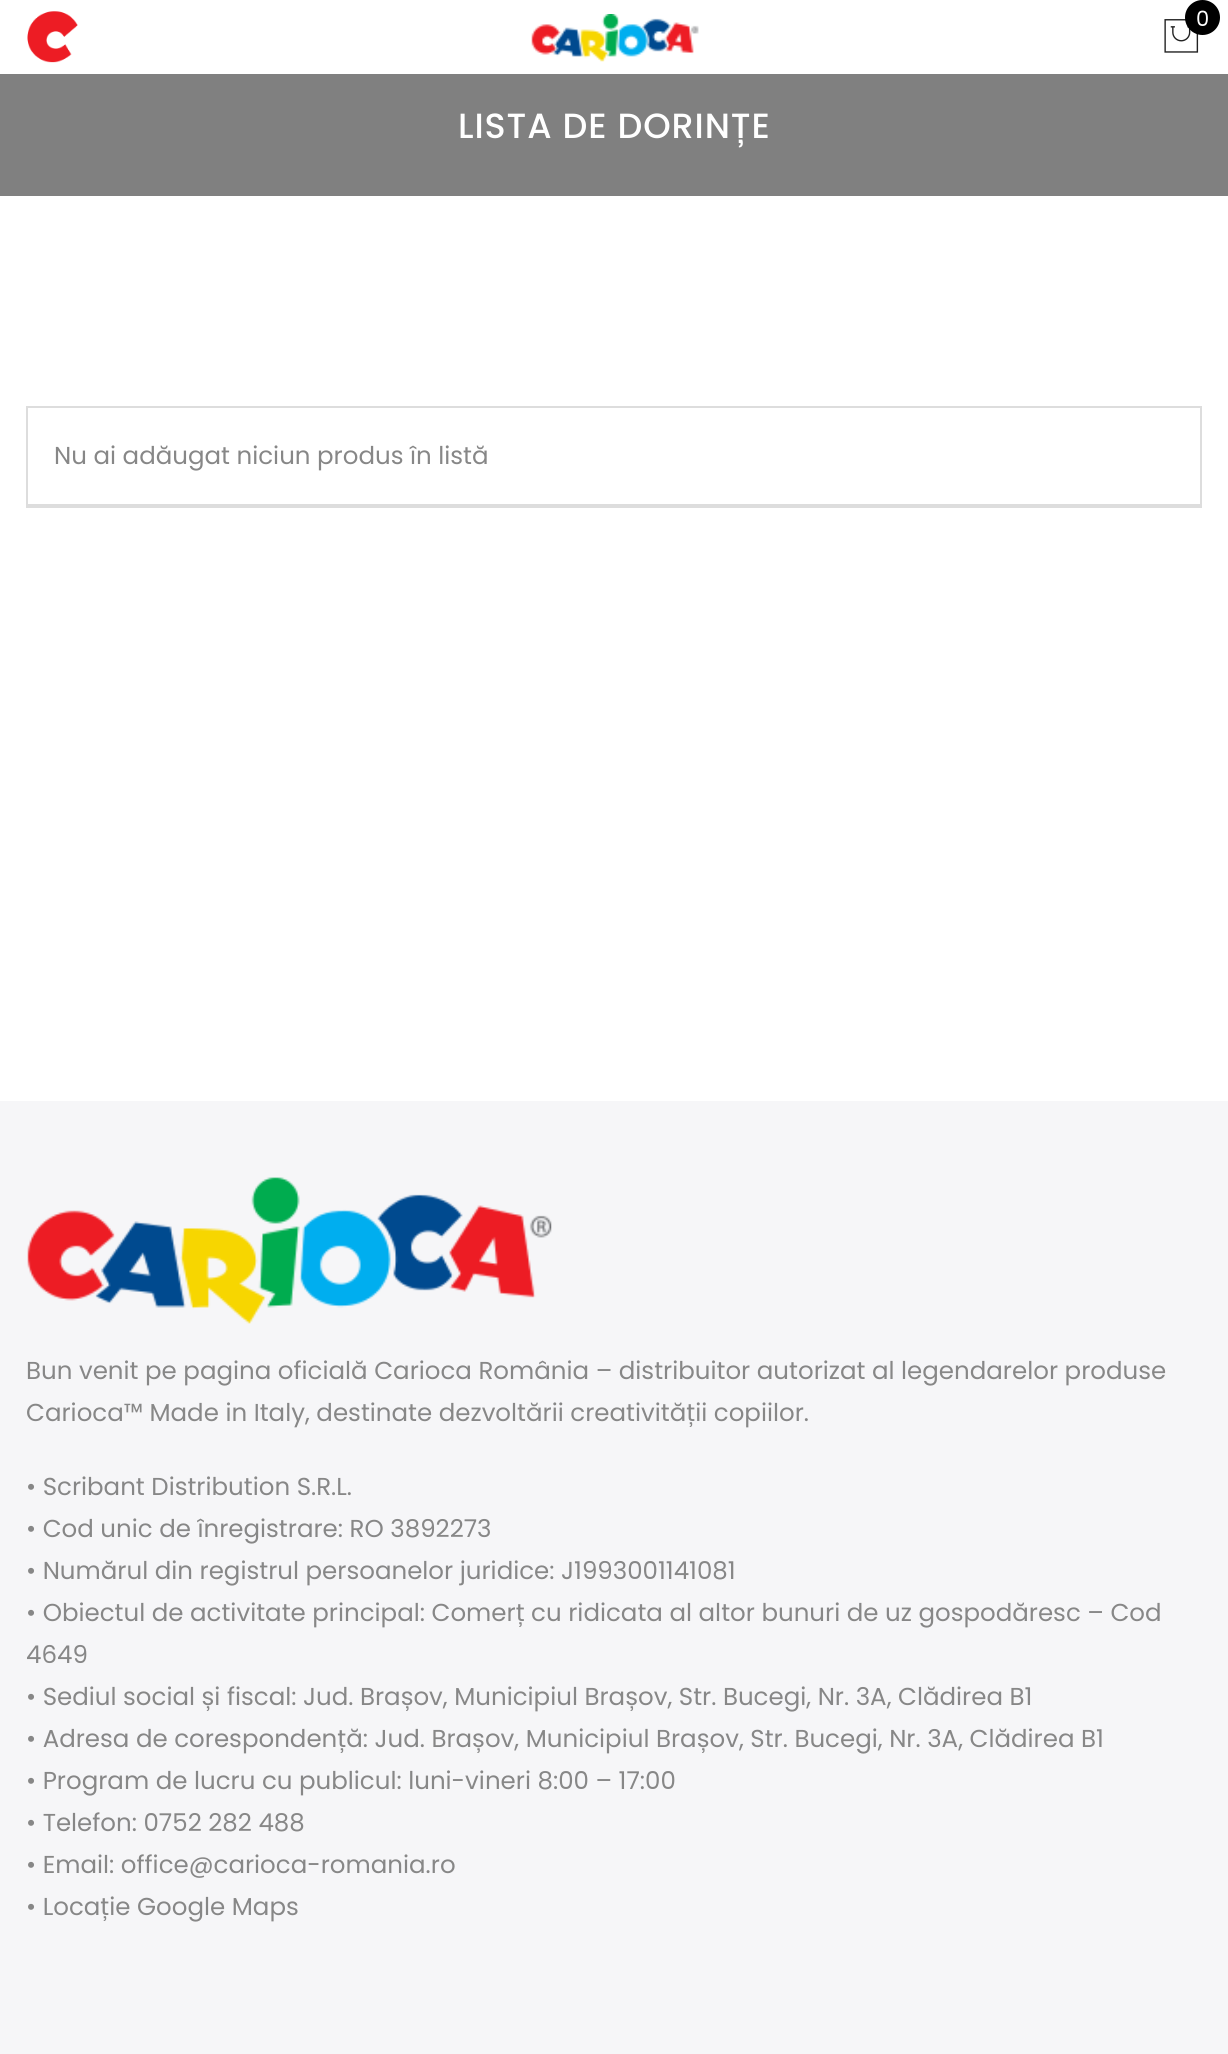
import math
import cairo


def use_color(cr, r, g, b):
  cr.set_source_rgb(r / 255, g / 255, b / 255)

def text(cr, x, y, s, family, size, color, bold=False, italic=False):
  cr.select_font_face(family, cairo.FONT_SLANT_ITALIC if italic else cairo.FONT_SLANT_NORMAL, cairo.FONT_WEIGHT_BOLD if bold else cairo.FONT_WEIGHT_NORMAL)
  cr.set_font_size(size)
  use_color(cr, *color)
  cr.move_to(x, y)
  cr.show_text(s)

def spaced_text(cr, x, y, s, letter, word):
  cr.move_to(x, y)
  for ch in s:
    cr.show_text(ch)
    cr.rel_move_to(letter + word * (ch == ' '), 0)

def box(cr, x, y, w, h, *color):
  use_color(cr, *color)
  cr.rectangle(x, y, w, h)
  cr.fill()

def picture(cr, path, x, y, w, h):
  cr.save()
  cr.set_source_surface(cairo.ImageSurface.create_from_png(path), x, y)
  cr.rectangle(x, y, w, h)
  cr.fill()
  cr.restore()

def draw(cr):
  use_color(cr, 255, 255, 255)
  cr.paint()
  picture(cr, "img_01.png", 27, 11, 51, 52)
  picture(cr, "img_02.png", 531, 14, 168, 48)
  picture(cr, "img_03.png", 1164, 19, 35, 34)
  use_color(cr, 0, 0, 0)
  cr.arc(1202.5, 17.5, 17.5, 0, 2 * math.pi)
  cr.fill()
  box(cr, 0, 74, 1228, 122, 128, 128, 128)
  cr.rectangle(27, 407, 1174, 100)
  use_color(cr, 221, 221, 221)
  cr.stroke()
  box(cr, 28, 504, 1173, 2, 221, 221, 221)
  box(cr, 0, 1101, 1228, 953, 246, 246, 248)
  picture(cr, "img_04.png", 27, 1177, 525, 147)
  text(cr, 1196, 26, "0", "Poppins", 21, (255, 255, 255))
  cr.select_font_face("Poppins Medium")
  cr.set_font_size(35)
  spaced_text(cr, 458, 138, "LISTA DE DORINȚE", 0.9, 0)
  text(cr, 54, 464, "Nu ai adăugat niciun produs în listă", "Poppins", 24.5, (135, 135, 135))
  text(cr, 26, 1379, "Bun venit pe pagina oficială Carioca România – distribuitor autorizat al legendarelor produse", "Poppins", 24.5, (135, 135, 135))
  text(cr, 26, 1421, "Carioca™ Made in Italy, destinate dezvoltării creativității copiilor.", "Poppins", 24.5, (135, 135, 135))
  text(cr, 26, 1495, "• Scribant Distribution S.R.L.", "Poppins", 24.5, (135, 135, 135))
  text(cr, 26, 1537, "• Cod unic de înregistrare: RO 3892273", "Poppins", 24.5, (135, 135, 135))
  text(cr, 26, 1579, "• Numărul din registrul persoanelor juridice: J1993001141081", "Poppins", 24.5, (135, 135, 135))
  text(cr, 26, 1621, "• Obiectul de activitate principal: Comerț cu ridicata al altor bunuri de uz gospodăresc – Cod", "Poppins", 24.5, (135, 135, 135))
  text(cr, 26, 1663, "4649", "Poppins", 24.5, (135, 135, 135))
  text(cr, 26, 1705, "• Sediul social și fiscal: Jud. Brașov, Municipiul Brașov, Str. Bucegi, Nr. 3A, Clădirea B1", "Poppins", 24.5, (135, 135, 135))
  text(cr, 26, 1747, "• Adresa de corespondență: Jud. Brașov, Municipiul Brașov, Str. Bucegi, Nr. 3A, Clădirea B1", "Poppins", 24.5, (135, 135, 135))
  text(cr, 26, 1789, "• Program de lucru cu publicul: luni-vineri 8:00 – 17:00", "Poppins", 24.5, (135, 135, 135))
  text(cr, 26, 1831, "• Telefon: 0752 282 488", "Poppins", 24.5, (135, 135, 135))
  text(cr, 26, 1873, "• Email: office@carioca-romania.ro", "Poppins", 24.5, (135, 135, 135))
  text(cr, 26, 1915, "• Locație Google Maps", "Poppins", 24.5, (135, 135, 135))


surface = cairo.ImageSurface(cairo.FORMAT_RGB24, 1228, 2054)
cr = cairo.Context(surface)
options = cairo.FontOptions()
options.set_hint_metrics(cairo.HINT_METRICS_OFF)
options.set_hint_style(cairo.HINT_STYLE_NONE)
cr.set_font_options(options)
cr.set_miter_limit(4)
draw(cr)
surface.write_to_png("out.png")
